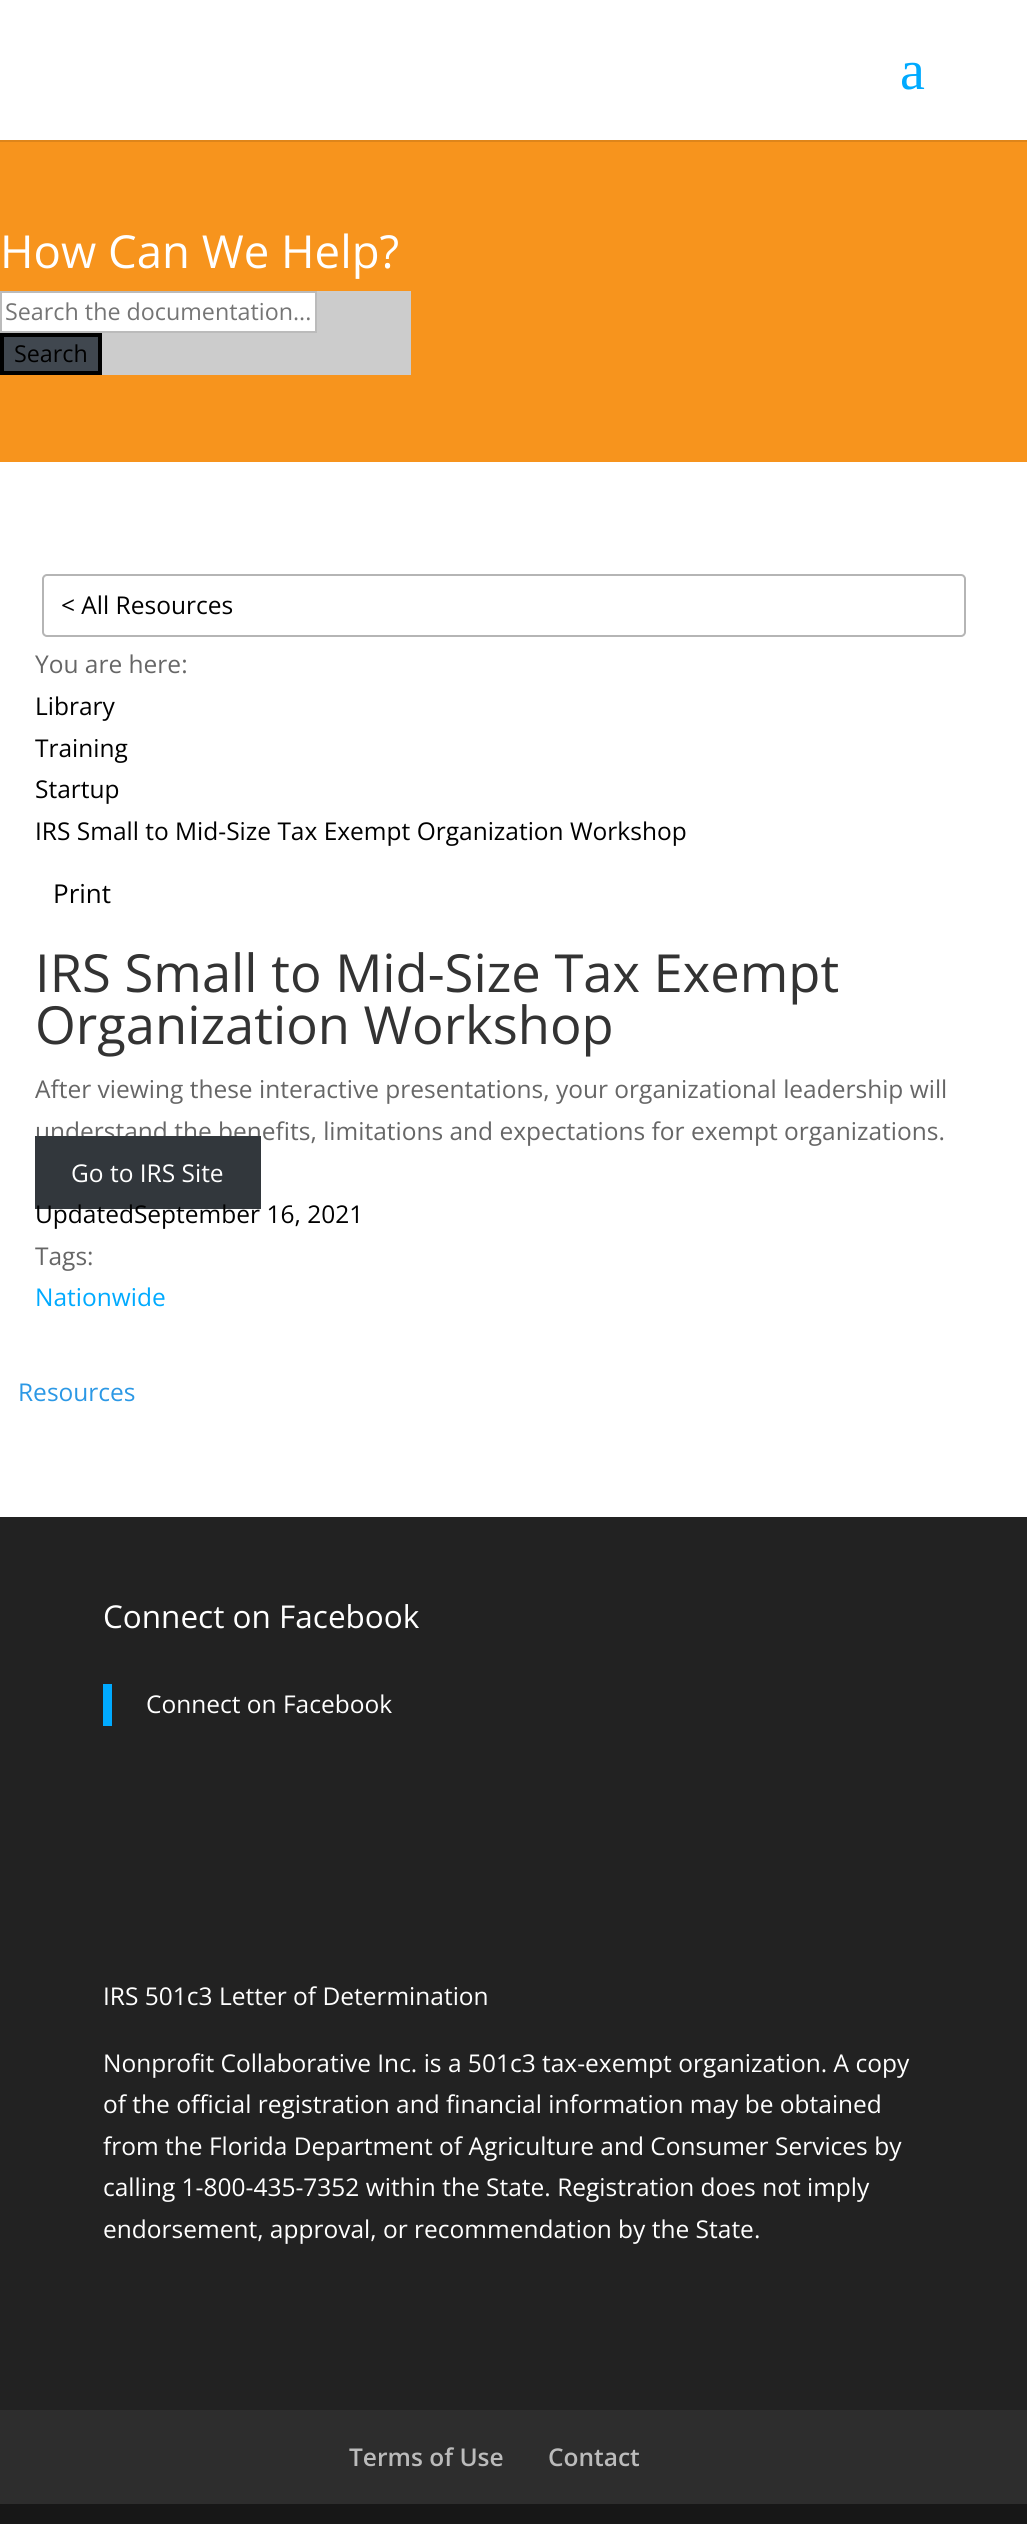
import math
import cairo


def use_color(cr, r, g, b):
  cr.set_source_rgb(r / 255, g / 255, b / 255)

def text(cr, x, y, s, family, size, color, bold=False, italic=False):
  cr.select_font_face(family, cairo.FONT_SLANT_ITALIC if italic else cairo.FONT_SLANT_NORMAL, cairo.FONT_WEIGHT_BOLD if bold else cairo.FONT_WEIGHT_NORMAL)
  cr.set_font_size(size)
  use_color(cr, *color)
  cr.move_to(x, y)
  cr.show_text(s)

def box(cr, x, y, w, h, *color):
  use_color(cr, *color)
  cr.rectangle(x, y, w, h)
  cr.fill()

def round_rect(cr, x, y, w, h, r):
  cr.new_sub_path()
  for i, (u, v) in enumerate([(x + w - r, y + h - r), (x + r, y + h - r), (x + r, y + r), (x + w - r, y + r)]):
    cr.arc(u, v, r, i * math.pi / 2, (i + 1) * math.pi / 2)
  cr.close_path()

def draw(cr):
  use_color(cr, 255, 255, 255)
  cr.paint()
  box(cr, 0, 140, 1027, 2, 222, 133, 26)
  box(cr, 0, 142, 1027, 320, 247, 148, 29)
  box(cr, 102, 291, 309, 84, 204, 204, 204)
  use_color(cr, 255, 255, 255)
  cr.rectangle(1, 292, 315, 40)
  cr.fill_preserve()
  use_color(cr, 187, 187, 187)
  cr.stroke()
  use_color(cr, 64, 71, 79)
  cr.rectangle(2, 335, 98, 38)
  cr.fill_preserve()
  use_color(cr, 0, 0, 0)
  cr.set_line_width(4)
  cr.stroke()
  round_rect(cr, 43, 575, 922, 61, 4)
  use_color(cr, 181, 181, 181)
  cr.set_line_width(2)
  cr.stroke()
  box(cr, 0, 1517, 1027, 893, 34, 34, 34)
  box(cr, 103, 1684, 9, 42, 0, 170, 255)
  box(cr, 0, 2410, 1027, 94, 45, 45, 45)
  box(cr, 0, 2504, 1027, 20, 23, 23, 23)
  text(cr, 900, 89, "a", "Liberation Serif", 56, (0, 170, 255))
  text(cr, 0, 268, "How Can We Help?", "Open Sans", 45.5, (255, 255, 255))
  text(cr, 5, 320, "Search the documentation...", "Open Sans", 23.3, (117, 117, 117))
  text(cr, 14, 362, "Search", "Open Sans", 23.3, (0, 0, 0))
  text(cr, 61, 614, "< All Resources", "Open Sans", 24.5, (0, 0, 0))
  text(cr, 35, 673, "You are here:", "Open Sans", 24.5, (102, 102, 102))
  text(cr, 35, 715, "Library", "Open Sans", 24.5, (0, 0, 0))
  text(cr, 35, 757, "Training", "Open Sans", 24.5, (0, 0, 0))
  text(cr, 35, 798, "Startup", "Open Sans", 24.5, (0, 0, 0))
  text(cr, 35, 840, "IRS Small to Mid-Size Tax Exempt Organization Workshop", "Open Sans", 24.5, (0, 0, 0))
  text(cr, 53, 903, "Print", "Open Sans", 26, (0, 0, 0))
  text(cr, 35, 992, "IRS Small to Mid-Size Tax Exempt", "Open Sans", 52.5, (51, 51, 51))
  text(cr, 35, 1044, "Organization Workshop", "Open Sans", 52.5, (51, 51, 51))
  text(cr, 35, 1098, "After viewing these interactive presentations, your organizational leadership will", "Open Sans", 24.5, (102, 102, 102))
  text(cr, 35, 1140, "understand the benefits, limitations and expectations for exempt organizations.", "Open Sans", 24.5, (102, 102, 102))
  box(cr, 35, 1136, 226, 73, 50, 55, 60)
  text(cr, 71, 1182, "Go to IRS Site", "Open Sans", 24.5, (255, 255, 255))
  text(cr, 35, 1223, "UpdatedSeptember 16, 2021", "Open Sans", 24.5, (0, 0, 0))
  text(cr, 35, 1265, "Tags:", "Open Sans", 24.5, (102, 102, 102))
  text(cr, 35, 1306, "Nationwide", "Open Sans", 24.5, (0, 170, 255))
  text(cr, 18, 1401, "Resources", "Open Sans", 24.5, (43, 152, 229))
  text(cr, 103, 1628, "Connect on Facebook", "Open Sans", 31.5, (255, 255, 255))
  text(cr, 146, 1713, "Connect on Facebook", "Open Sans", 24.5, (255, 255, 255))
  text(cr, 103, 2005, "IRS 501c3 Letter of Determination", "Open Sans", 24.5, (255, 255, 255))
  text(cr, 103, 2072, "Nonprofit Collaborative Inc. is a 501c3 tax-exempt organization. A copy", "Open Sans", 24.5, (255, 255, 255))
  text(cr, 103, 2113, "of the official registration and financial information may be obtained", "Open Sans", 24.5, (255, 255, 255))
  text(cr, 103, 2155, "from the Florida Department of Agriculture and Consumer Services by", "Open Sans", 24.5, (255, 255, 255))
  text(cr, 103, 2196, "calling 1-800-435-7352 within the State. Registration does not imply", "Open Sans", 24.5, (255, 255, 255))
  text(cr, 103, 2238, "endorsement, approval, or recommendation by the State.", "Open Sans", 24.5, (255, 255, 255))
  text(cr, 349, 2466, "Terms of Use", "Open Sans SemiBold", 24.5, (187, 187, 187))
  text(cr, 548, 2466, "Contact", "Open Sans SemiBold", 24.5, (187, 187, 187))


surface = cairo.ImageSurface(cairo.FORMAT_RGB24, 1027, 2524)
cr = cairo.Context(surface)
options = cairo.FontOptions()
options.set_hint_metrics(cairo.HINT_METRICS_OFF)
options.set_hint_style(cairo.HINT_STYLE_NONE)
cr.set_font_options(options)
cr.set_miter_limit(4)
draw(cr)
surface.write_to_png("out.png")
